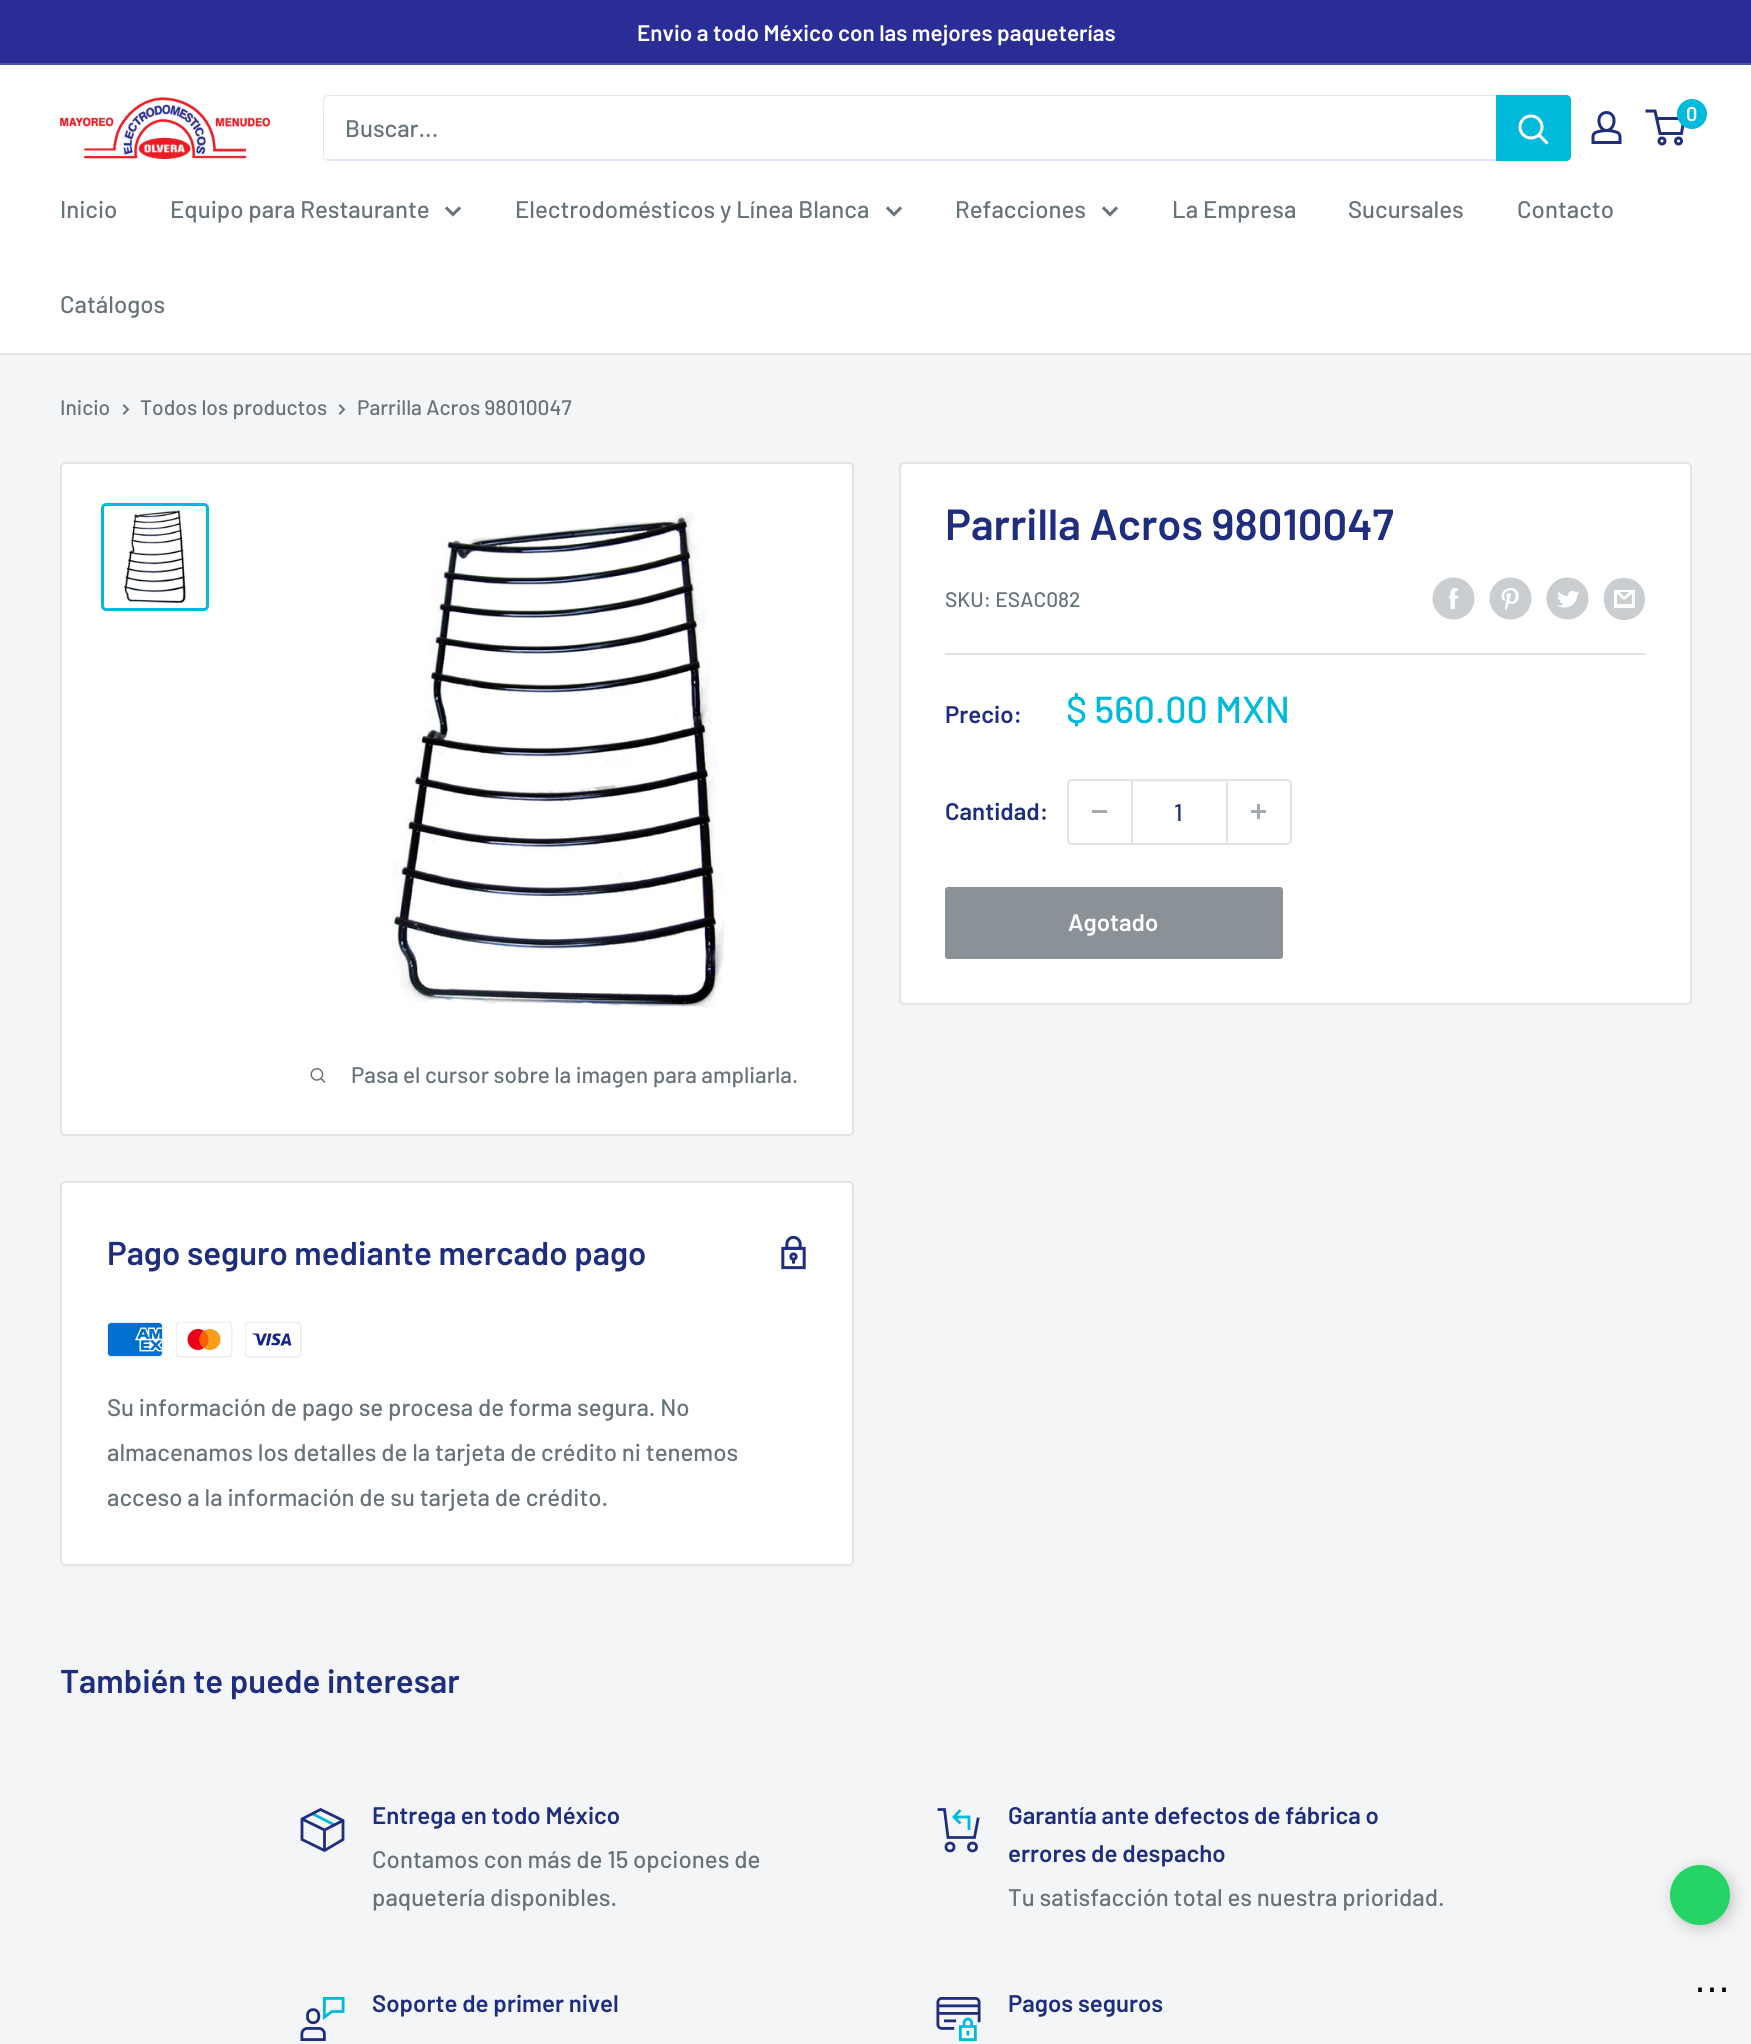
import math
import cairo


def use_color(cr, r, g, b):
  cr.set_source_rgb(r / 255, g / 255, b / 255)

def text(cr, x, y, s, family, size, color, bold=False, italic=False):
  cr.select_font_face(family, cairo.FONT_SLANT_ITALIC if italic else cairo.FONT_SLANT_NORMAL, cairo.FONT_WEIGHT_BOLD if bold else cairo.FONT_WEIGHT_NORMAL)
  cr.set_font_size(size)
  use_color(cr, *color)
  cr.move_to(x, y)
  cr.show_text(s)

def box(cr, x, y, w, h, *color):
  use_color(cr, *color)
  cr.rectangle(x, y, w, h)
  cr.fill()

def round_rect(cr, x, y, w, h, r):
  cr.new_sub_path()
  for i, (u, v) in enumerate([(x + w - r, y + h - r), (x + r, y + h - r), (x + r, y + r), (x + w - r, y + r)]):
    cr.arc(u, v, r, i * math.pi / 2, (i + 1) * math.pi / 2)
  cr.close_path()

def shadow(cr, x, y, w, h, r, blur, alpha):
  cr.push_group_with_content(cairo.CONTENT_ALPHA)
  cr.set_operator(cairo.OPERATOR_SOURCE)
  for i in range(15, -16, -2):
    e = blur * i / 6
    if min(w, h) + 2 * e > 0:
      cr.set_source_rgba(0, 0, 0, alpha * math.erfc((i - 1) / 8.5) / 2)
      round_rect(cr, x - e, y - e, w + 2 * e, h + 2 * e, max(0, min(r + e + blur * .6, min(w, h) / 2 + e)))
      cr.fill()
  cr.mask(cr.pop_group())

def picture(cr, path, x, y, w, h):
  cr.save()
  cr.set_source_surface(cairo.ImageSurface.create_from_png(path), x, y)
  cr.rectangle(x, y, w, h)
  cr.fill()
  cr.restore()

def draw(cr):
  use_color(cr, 243, 245, 246)
  cr.paint()
  box(cr, 0, 0, 1751, 63, 41, 45, 149)
  box(cr, 0, 63, 1751, 2, 78, 84, 176)
  box(cr, 0, 65, 1751, 288, 255, 255, 255)
  picture(cr, "img_01.png", 60, 97, 210, 62)
  picture(cr, "img_02.png", 1591, 111, 31, 33)
  cr.arc(1662, 141, 3, 0, 2 * math.pi)
  use_color(cr, 30, 45, 125)
  cr.set_line_width(3)
  cr.stroke()
  cr.arc(1678.5, 141, 3, 0, 2 * math.pi)
  cr.stroke()
  cr.new_path()
  cr.move_to(1656.5, 118.5)
  cr.line_to(1684, 118.5)
  cr.line_to(1681.5, 133.5)
  cr.line_to(1660, 133.5)
  cr.line_to(1655, 111)
  cr.line_to(1645.5, 111)
  cr.stroke()
  use_color(cr, 0, 186, 219)
  cr.arc(1692, 114, 15, 0, 2 * math.pi)
  cr.fill()
  use_color(cr, 227, 231, 250)
  cr.new_path()
  cr.move_to(324, 159)
  cr.curve_to(325, 160, 326, 161, 328, 161)
  cr.line_to(1566, 161)
  cr.curve_to(1569, 161, 1571, 159, 1571, 156)
  cr.line_to(1571, 100)
  cr.curve_to(1571, 98, 1570, 97, 1569, 96)
  cr.line_to(1569, 98)
  cr.line_to(1569, 154)
  cr.curve_to(1569, 157, 1567, 159, 1564, 159)
  cr.line_to(326, 159)
  cr.close_path()
  cr.fill()
  cr.new_path()
  cr.move_to(328, 96)
  cr.line_to(1569, 96)
  cr.curve_to(1568, 95, 1567, 95, 1566, 95)
  cr.line_to(328, 95)
  cr.curve_to(325, 95, 323, 97, 323, 100)
  cr.line_to(323, 156)
  cr.curve_to(323, 157, 323, 158, 324, 159)
  cr.line_to(324, 110)
  cr.curve_to(324, 108, 322, 96, 328, 96)
  cr.close_path()
  cr.fill()
  use_color(cr, 0, 186, 219)
  cr.new_path()
  cr.move_to(1496, 95)
  cr.line_to(1566, 95)
  cr.curve_to(1569, 95, 1571, 97, 1571, 100)
  cr.line_to(1571, 156)
  cr.curve_to(1571, 159, 1569, 161, 1566, 161)
  cr.line_to(1496, 161)
  cr.close_path()
  cr.fill()
  cr.new_path()
  cr.move_to(1546.5, 142.5)
  cr.line_to(1539, 135)
  use_color(cr, 255, 255, 255)
  cr.set_line_cap(cairo.LINE_CAP_SQUARE)
  cr.stroke()
  cr.arc(1531, 127, 11, 0, 2 * math.pi)
  cr.set_line_cap(cairo.LINE_CAP_BUTT)
  cr.stroke()
  box(cr, 0, 353, 1751, 2, 225, 227, 228)
  cr.new_path()
  cr.move_to(459, 208.5)
  cr.line_to(453, 214.5)
  cr.line_to(447, 208.5)
  use_color(cr, 103, 114, 121)
  cr.set_line_cap(cairo.LINE_CAP_SQUARE)
  cr.stroke()
  cr.new_path()
  cr.move_to(900, 208.5)
  cr.line_to(894, 214.5)
  cr.line_to(888, 208.5)
  cr.stroke()
  cr.new_path()
  cr.move_to(1116, 208.5)
  cr.line_to(1110, 214.5)
  cr.line_to(1104, 208.5)
  cr.stroke()
  cr.new_path()
  cr.move_to(124, 405.5)
  cr.line_to(128, 409.5)
  cr.line_to(124, 413.5)
  cr.set_line_width(2)
  cr.stroke()
  cr.new_path()
  cr.move_to(340, 405.5)
  cr.line_to(344, 409.5)
  cr.line_to(340, 413.5)
  cr.stroke()
  use_color(cr, 255, 255, 255)
  round_rect(cr, 900, 463, 791, 541, 4)
  cr.fill_preserve()
  use_color(cr, 225, 227, 228)
  cr.set_line_cap(cairo.LINE_CAP_BUTT)
  cr.stroke()
  picture(cr, "img_03.png", 1432, 577, 43, 43)
  picture(cr, "img_04.png", 1489, 577, 43, 43)
  picture(cr, "img_05.png", 1546, 577, 43, 43)
  use_color(cr, 202, 206, 208)
  cr.new_path()
  cr.move_to(1624, 620)
  cr.curve_to(1597, 620, 1597, 577, 1624, 578)
  cr.curve_to(1652, 578, 1652, 620, 1624, 620)
  cr.close_path()
  cr.move_to(1620, 592)
  cr.line_to(1629, 592)
  cr.line_to(1624, 597)
  cr.close_path()
  cr.move_to(1632, 594)
  cr.line_to(1632, 604)
  cr.line_to(1617, 604)
  cr.line_to(1617, 594)
  cr.line_to(1624, 600)
  cr.close_path()
  cr.move_to(1635, 590)
  cr.line_to(1614, 590)
  cr.line_to(1614, 608)
  cr.line_to(1635, 608)
  cr.close_path()
  cr.fill()
  box(cr, 945, 653, 701, 2, 225, 227, 228)
  round_rect(cr, 1068, 780, 223, 64, 4)
  cr.stroke()
  box(cr, 1092, 810, 15, 3, 164, 170, 175)
  cr.set_source_rgba(0.882, 0.89, 0.894, 0.4)
  cr.rectangle(1133, 781, 93, 1)
  cr.fill()
  box(cr, 1226, 780, 2, 63, 225, 227, 228)
  box(cr, 1131, 780, 2, 63, 225, 227, 228)
  picture(cr, "img_06.png", 1251, 804, 15, 15)
  use_color(cr, 138, 146, 151)
  round_rect(cr, 946, 888, 336, 70, 2)
  cr.fill_preserve()
  cr.stroke()
  use_color(cr, 255, 255, 255)
  round_rect(cr, 61, 463, 792, 672, 4)
  cr.fill_preserve()
  use_color(cr, 225, 227, 228)
  cr.stroke()
  round_rect(cr, 102.5, 504.5, 105, 105, 3.5)
  use_color(cr, 0, 186, 219)
  cr.set_line_width(3)
  cr.stroke()
  picture(cr, "img_07.png", 123, 508, 64, 96)
  picture(cr, "img_08.png", 392, 511, 333, 499)
  picture(cr, "img_09.png", 310, 1068, 16, 15)
  use_color(cr, 255, 255, 255)
  round_rect(cr, 61, 1182, 792, 383, 4)
  cr.fill_preserve()
  use_color(cr, 225, 227, 228)
  cr.set_line_width(2)
  cr.stroke()
  picture(cr, "img_10.png", 781, 1235, 25, 35)
  picture(cr, "img_11.png", 107, 1322, 57, 36)
  picture(cr, "img_12.png", 176, 1322, 57, 36)
  picture(cr, "img_13.png", 245, 1322, 57, 36)
  cr.new_path()
  cr.move_to(312, 1813.5)
  cr.line_to(334.5, 1825)
  use_color(cr, 0, 186, 219)
  cr.set_line_width(2.8)
  cr.stroke()
  cr.new_path()
  cr.move_to(343, 1820.5)
  cr.line_to(324.5, 1830)
  cr.line_to(302, 1819)
  cr.move_to(324.5, 1830)
  cr.line_to(324.5, 1850.5)
  use_color(cr, 30, 45, 125)
  cr.stroke()
  cr.new_path()
  cr.move_to(343, 1820.5)
  cr.line_to(343, 1839.5)
  cr.line_to(324.5, 1850.5)
  cr.line_to(302, 1839.5)
  cr.line_to(302, 1819)
  cr.line_to(320.5, 1809.5)
  cr.close_path()
  cr.set_line_cap(cairo.LINE_CAP_SQUARE)
  cr.stroke()
  cr.new_path()
  cr.move_to(954, 1817)
  cr.line_to(969, 1817)
  cr.line_to(969, 1830)
  use_color(cr, 0, 186, 219)
  cr.set_line_cap(cairo.LINE_CAP_BUTT)
  cr.stroke()
  cr.new_path()
  cr.move_to(959.5, 1822.5)
  cr.line_to(954, 1817)
  cr.line_to(959.5, 1811)
  cr.set_line_cap(cairo.LINE_CAP_SQUARE)
  cr.stroke()
  cr.new_path()
  cr.move_to(978, 1819)
  cr.line_to(974.5, 1837.5)
  cr.line_to(948, 1837.5)
  cr.line_to(944.5, 1809.5)
  cr.line_to(939, 1809.5)
  use_color(cr, 30, 45, 125)
  cr.stroke()
  cr.arc(950, 1847, 4, 0, 2 * math.pi)
  cr.set_line_cap(cairo.LINE_CAP_BUTT)
  cr.stroke()
  cr.arc(972.5, 1847, 4, 0, 2 * math.pi)
  cr.stroke()
  picture(cr, "img_14.png", 300, 1997, 45, 44)
  picture(cr, "img_15.png", 936, 1997, 45, 44)
  use_color(cr, 0, 0, 0)
  shadow(cr, 1673, 1868, 60, 60, 30, 7.5, 0.2)
  use_color(cr, 37, 211, 102)
  cr.arc(1700, 1895, 30, 0, 2 * math.pi)
  cr.fill()
  text(cr, 637, 41, "Envio a todo México con las mejores paqueterías", "Barlow SemiBold", 22.5, (255, 255, 255))
  text(cr, 1686, 121, "0", "Barlow SemiBold", 20, (255, 255, 255))
  text(cr, 345, 137, "Buscar...", "Barlow Medium", 24, (103, 114, 121))
  text(cr, 60, 218, "Inicio", "Barlow Medium", 24, (103, 114, 121))
  text(cr, 170, 218, "Equipo para Restaurante", "Barlow Medium", 24, (103, 114, 121))
  text(cr, 515, 218, "Electrodomésticos y Línea Blanca", "Barlow Medium", 24, (103, 114, 121))
  text(cr, 955, 218, "Refacciones", "Barlow Medium", 24, (103, 114, 121))
  text(cr, 1172, 218, "La Empresa", "Barlow Medium", 24, (103, 114, 121))
  text(cr, 1348, 218, "Sucursales", "Barlow Medium", 24, (103, 114, 121))
  text(cr, 1517, 218, "Contacto", "Barlow Medium", 24, (103, 114, 121))
  text(cr, 60, 313, "Catálogos", "Barlow Medium", 24, (103, 114, 121))
  text(cr, 60, 415, "Inicio", "Barlow Medium", 21, (103, 114, 121))
  text(cr, 140, 415, "Todos los productos", "Barlow Medium", 21, (103, 114, 121))
  text(cr, 357, 415, "Parrilla Acros 98010047", "Barlow Medium", 21, (103, 114, 121))
  text(cr, 945, 540, "Parrilla Acros 98010047", "Barlow SemiBold", 43.5, (30, 45, 125))
  text(cr, 945, 607, "SKU: ESAC082", "Barlow Medium", 21, (103, 114, 121))
  text(cr, 945, 723, "Precio:", "Barlow SemiBold", 24, (30, 45, 125))
  text(cr, 1066, 723, "$ 560.00 MXN", "Barlow Medium", 37.5, (0, 186, 219))
  text(cr, 945, 820, "Cantidad:", "Barlow SemiBold", 24, (30, 45, 125))
  text(cr, 1174, 821, "1", "Barlow Medium", 24, (30, 45, 125))
  text(cr, 1068, 931, "Agotado", "Barlow SemiBold", 24, (255, 255, 255))
  text(cr, 351, 1083, "Pasa el cursor sobre la imagen para ampliarla.", "Barlow Medium", 22.5, (103, 114, 121))
  text(cr, 107, 1265, "Pago seguro mediante mercado pago", "Barlow SemiBold", 33, (30, 45, 125))
  text(cr, 107, 1416, "Su información de pago se procesa de forma segura. No", "Barlow Medium", 24, (103, 114, 121))
  text(cr, 107, 1461, "almacenamos los detalles de la tarjeta de crédito ni tenemos", "Barlow Medium", 24, (103, 114, 121))
  text(cr, 107, 1506, "acceso a la información de su tarjeta de crédito.", "Barlow Medium", 24, (103, 114, 121))
  text(cr, 60, 1693, "También te puede interesar", "Barlow SemiBold", 33, (30, 45, 125))
  text(cr, 372, 1824, "Entrega en todo México", "Barlow SemiBold", 24, (30, 45, 125))
  text(cr, 372, 1868, "Contamos con más de 15 opciones de", "Barlow Medium", 24, (103, 114, 121))
  text(cr, 372, 1906, "paquetería disponibles.", "Barlow Medium", 24, (103, 114, 121))
  text(cr, 1008, 1824, "Garantía ante defectos de fábrica o", "Barlow SemiBold", 24, (30, 45, 125))
  text(cr, 1008, 1862, "errores de despacho", "Barlow SemiBold", 24, (30, 45, 125))
  text(cr, 1008, 1906, "Tu satisfacción total es nuestra prioridad.", "Barlow Medium", 24, (103, 114, 121))
  text(cr, 372, 2012, "Soporte de primer nivel", "Barlow SemiBold", 24, (30, 45, 125))
  text(cr, 1008, 2012, "Pagos seguros", "Barlow SemiBold", 24, (30, 45, 125))
  text(cr, 1694, 2001, "⋯", "DejaVu Sans", 36, (0, 0, 0))


surface = cairo.ImageSurface(cairo.FORMAT_RGB24, 1751, 2044)
cr = cairo.Context(surface)
options = cairo.FontOptions()
options.set_hint_metrics(cairo.HINT_METRICS_OFF)
options.set_hint_style(cairo.HINT_STYLE_NONE)
cr.set_font_options(options)
cr.set_miter_limit(4)
draw(cr)
surface.write_to_png("out.png")
